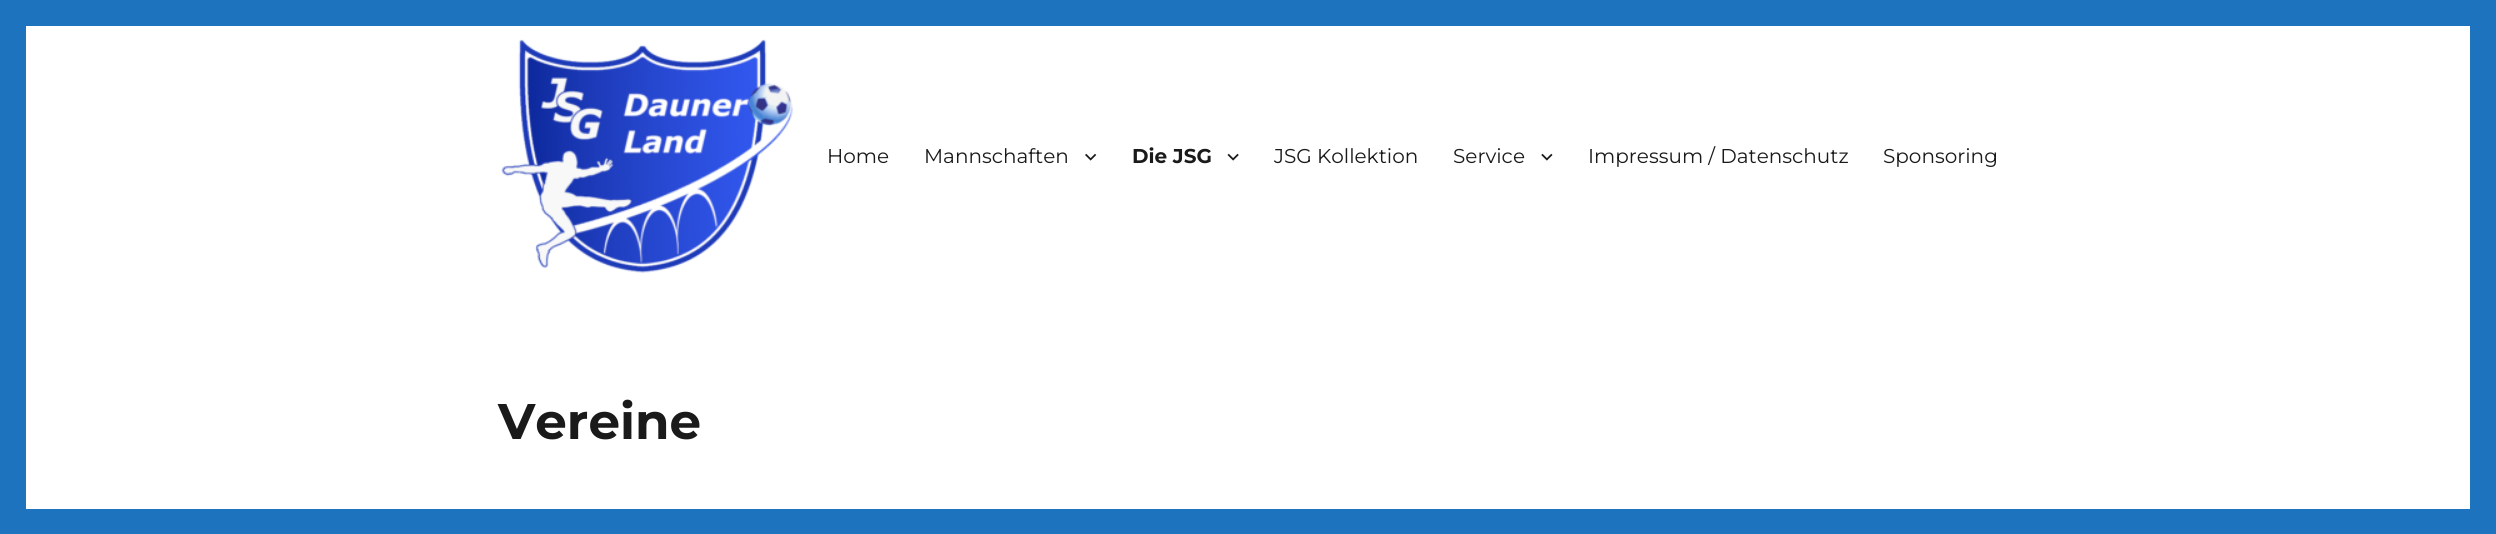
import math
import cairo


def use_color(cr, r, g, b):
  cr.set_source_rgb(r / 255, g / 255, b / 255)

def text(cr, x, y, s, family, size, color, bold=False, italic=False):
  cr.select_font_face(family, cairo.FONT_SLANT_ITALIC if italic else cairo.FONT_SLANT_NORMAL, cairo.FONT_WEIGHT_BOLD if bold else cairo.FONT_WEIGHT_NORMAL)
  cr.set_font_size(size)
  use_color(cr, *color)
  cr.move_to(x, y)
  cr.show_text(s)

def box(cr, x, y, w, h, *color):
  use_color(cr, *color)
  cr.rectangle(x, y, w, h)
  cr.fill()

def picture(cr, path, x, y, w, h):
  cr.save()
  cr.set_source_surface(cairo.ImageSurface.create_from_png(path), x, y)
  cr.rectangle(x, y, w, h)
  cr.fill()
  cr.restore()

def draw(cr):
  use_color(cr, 30, 115, 190)
  cr.paint()
  box(cr, 26, 26, 2444, 483, 255, 255, 255)
  picture(cr, "img_01.png", 501, 39, 293, 234)
  picture(cr, "img_02.png", 1085, 153, 12, 8)
  picture(cr, "img_03.png", 1227, 153, 12, 8)
  picture(cr, "img_04.png", 1541, 153, 12, 8)
  text(cr, 827, 163, "Home", "Montserrat Thin", 20, (26, 26, 26))
  text(cr, 924, 163, "Mannschaften", "Montserrat Thin", 20, (26, 26, 26))
  text(cr, 1132, 163, "Die JSG", "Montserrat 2 Thin", 20, (26, 26, 26))
  text(cr, 1274, 163, "JSG Kollektion", "Montserrat Thin", 20, (26, 26, 26))
  text(cr, 1453, 163, "Service", "Montserrat Thin", 20, (26, 26, 26))
  text(cr, 1588, 163, "Impressum / Datenschutz", "Montserrat Thin", 20, (26, 26, 26))
  text(cr, 1883, 163, "Sponsoring", "Montserrat Thin", 20, (26, 26, 26))
  text(cr, 498, 439, "Vereine", "Montserrat 2 Thin", 50, (26, 26, 26))


surface = cairo.ImageSurface(cairo.FORMAT_RGB24, 2496, 534)
cr = cairo.Context(surface)
options = cairo.FontOptions()
options.set_hint_metrics(cairo.HINT_METRICS_OFF)
options.set_hint_style(cairo.HINT_STYLE_NONE)
cr.set_font_options(options)
cr.set_miter_limit(4)
draw(cr)
surface.write_to_png("out.png")
